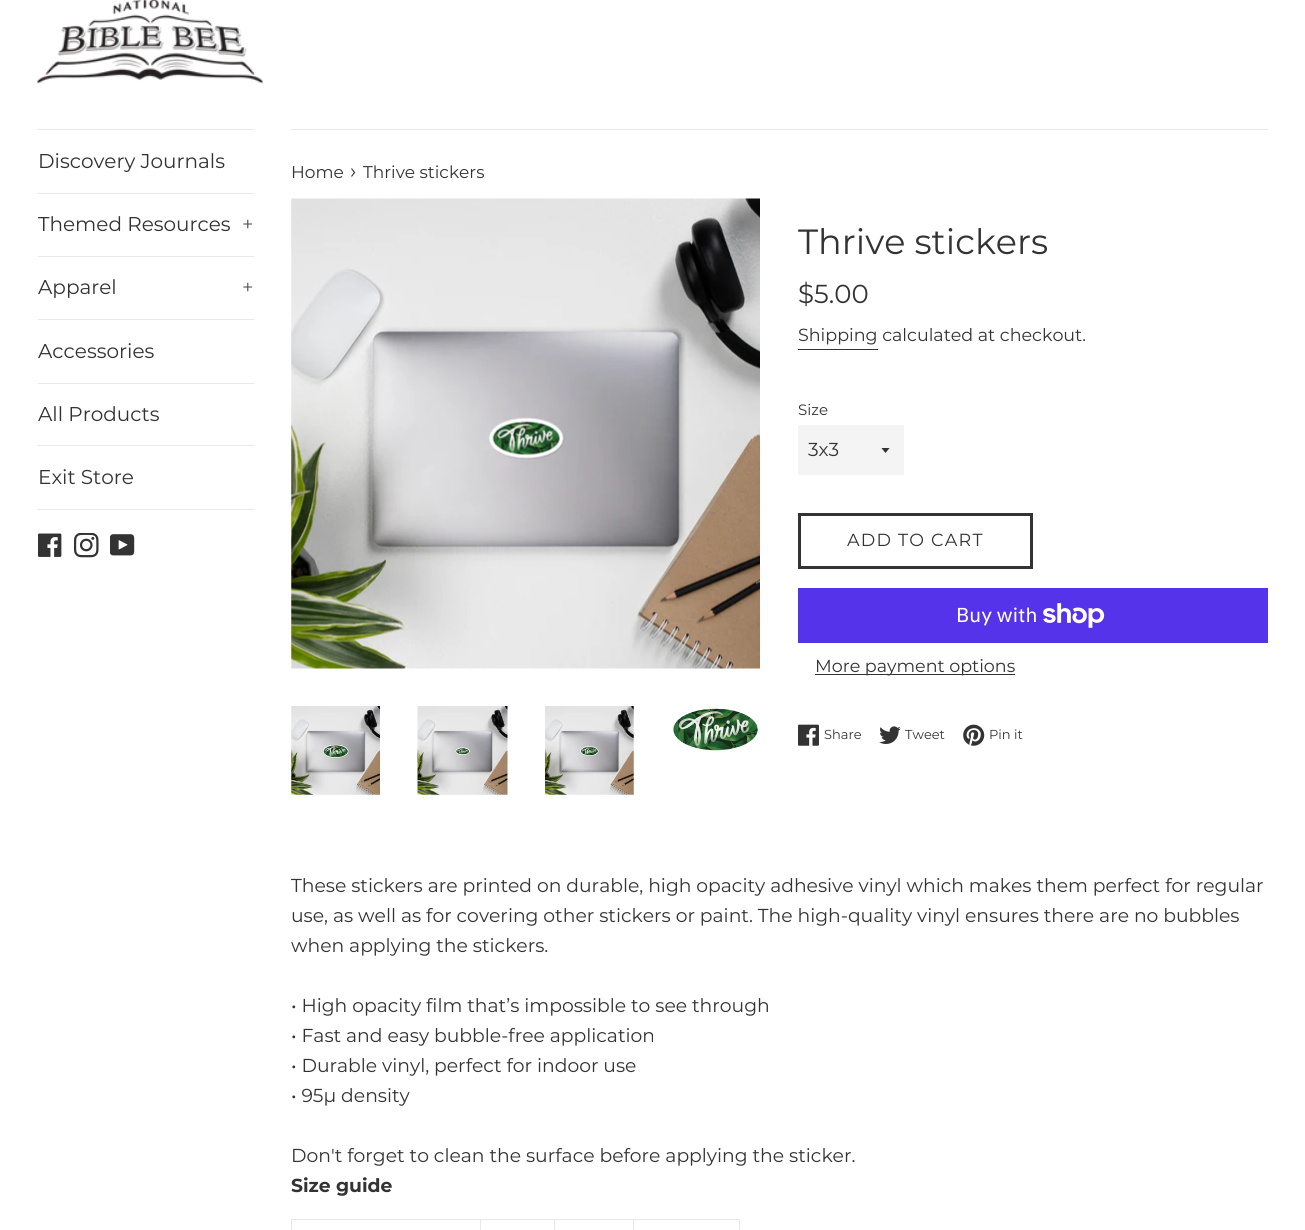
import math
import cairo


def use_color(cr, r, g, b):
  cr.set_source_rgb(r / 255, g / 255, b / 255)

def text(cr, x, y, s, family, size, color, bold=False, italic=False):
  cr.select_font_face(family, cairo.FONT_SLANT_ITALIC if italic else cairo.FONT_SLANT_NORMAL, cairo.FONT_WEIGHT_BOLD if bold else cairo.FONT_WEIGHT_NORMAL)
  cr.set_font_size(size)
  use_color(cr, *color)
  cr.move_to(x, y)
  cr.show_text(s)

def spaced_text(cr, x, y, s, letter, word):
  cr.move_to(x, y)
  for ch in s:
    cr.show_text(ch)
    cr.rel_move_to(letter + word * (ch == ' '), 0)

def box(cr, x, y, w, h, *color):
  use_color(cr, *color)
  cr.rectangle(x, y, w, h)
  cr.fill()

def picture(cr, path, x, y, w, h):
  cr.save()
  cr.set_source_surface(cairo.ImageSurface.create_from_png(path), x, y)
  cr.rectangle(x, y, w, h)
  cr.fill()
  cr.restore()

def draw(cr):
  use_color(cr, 255, 255, 255)
  cr.paint()
  picture(cr, "img_01.png", 37, 0, 226, 84)
  box(cr, 38, 129, 216, 1, 232, 232, 232)
  box(cr, 38, 193, 216, 1, 232, 232, 232)
  box(cr, 38, 256, 216, 1, 232, 232, 232)
  box(cr, 38, 319, 216, 1, 232, 232, 232)
  box(cr, 38, 383, 216, 1, 232, 232, 232)
  box(cr, 38, 445, 216, 1, 232, 232, 232)
  box(cr, 38, 509, 216, 1, 232, 232, 232)
  picture(cr, "img_02.png", 38, 533, 24, 24)
  picture(cr, "img_03.png", 74, 533, 25, 25)
  picture(cr, "img_04.png", 110, 534, 25, 22)
  box(cr, 291, 129, 977, 1, 232, 232, 232)
  picture(cr, "img_05.png", 291, 198, 469, 471)
  picture(cr, "img_06.png", 291, 706, 89, 89)
  picture(cr, "img_07.png", 417, 706, 91, 89)
  picture(cr, "img_08.png", 545, 706, 89, 89)
  picture(cr, "img_09.png", 673, 708, 85, 43)
  box(cr, 798, 349, 80, 1, 51, 51, 51)
  box(cr, 798, 425, 106, 50, 244, 244, 244)
  cr.save()
  cr.rectangle(881, 448, 10, 6)
  cr.clip()
  use_color(cr, 51, 51, 51)
  cr.new_path()
  cr.move_to(881, 447.5)
  cr.line_to(885.5, 453)
  cr.line_to(890, 447.5)
  cr.close_path()
  cr.fill()
  cr.restore()
  cr.rectangle(799.5, 514.5, 232, 53)
  use_color(cr, 51, 51, 51)
  cr.set_line_width(3)
  cr.stroke()
  box(cr, 798, 588, 470, 55, 84, 51, 235)
  picture(cr, "img_10.png", 1043, 603, 62, 25)
  box(cr, 815, 674, 200, 1, 51, 51, 51)
  picture(cr, "img_11.png", 798, 724, 21, 22)
  picture(cr, "img_12.png", 879, 726, 22, 18)
  picture(cr, "img_13.png", 963, 724, 22, 22)
  box(cr, 291, 1219, 449, 1, 232, 232, 232)
  box(cr, 739, 1219, 1, 11, 232, 232, 232)
  box(cr, 291, 1219, 1, 11, 232, 232, 232)
  box(cr, 480, 1219, 1, 11, 232, 232, 232)
  box(cr, 554, 1219, 1, 11, 232, 232, 232)
  box(cr, 633, 1219, 1, 11, 232, 232, 232)
  text(cr, 38, 168, "Discovery Journals", "Montserrat", 20, (51, 51, 51))
  text(cr, 38, 231, "Themed Resources", "Montserrat", 20, (51, 51, 51))
  text(cr, 242, 231, "+", "Montserrat", 20, (92, 92, 92))
  text(cr, 38, 294, "Apparel", "Montserrat", 20, (51, 51, 51))
  text(cr, 242, 294, "+", "Montserrat", 20, (92, 92, 92))
  text(cr, 38, 358, "Accessories", "Montserrat", 20, (51, 51, 51))
  text(cr, 38, 421, "All Products", "Montserrat", 20, (51, 51, 51))
  text(cr, 38, 484, "Exit Store", "Montserrat", 20, (51, 51, 51))
  text(cr, 291, 178, "Home", "Montserrat", 17, (51, 51, 51))
  text(cr, 350, 178, "›", "Montserrat", 21, (51, 51, 51))
  text(cr, 363, 178, "Thrive stickers", "Montserrat", 17, (51, 51, 51))
  text(cr, 798, 254, "Thrive stickers", "Montserrat", 35, (51, 51, 51))
  text(cr, 798, 303, "$5.00", "Montserrat", 26, (51, 51, 51))
  text(cr, 798, 341, "Shipping calculated at checkout.", "Montserrat", 17.5, (51, 51, 51))
  text(cr, 798, 415, "Size", "Montserrat", 15, (51, 51, 51))
  text(cr, 808, 456, "3x3", "Montserrat", 18.75, (51, 51, 51))
  cr.set_font_size(17.5)
  spaced_text(cr, 847, 546, "ADD TO CART", 1.25, 0)
  text(cr, 956, 622, "Buy with", "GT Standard", 20, (255, 255, 255))
  text(cr, 815, 672, "More payment options", "Montserrat", 17.5, (51, 51, 51))
  text(cr, 824, 739, "Share", "Montserrat", 13, (51, 51, 51))
  text(cr, 905, 739, "Tweet", "Montserrat", 13, (51, 51, 51))
  text(cr, 989, 739, "Pin it", "Montserrat", 13, (51, 51, 51))
  text(cr, 291, 892, "These stickers are printed on durable, high opacity adhesive vinyl which makes them perfect for regular", "Montserrat", 18.75, (51, 51, 51))
  text(cr, 291, 922, "use, as well as for covering other stickers or paint. The high-quality vinyl ensures there are no bubbles", "Montserrat", 18.75, (51, 51, 51))
  text(cr, 291, 952, "when applying the stickers.", "Montserrat", 18.75, (51, 51, 51))
  text(cr, 291, 1012, "• High opacity film that’s impossible to see through", "Montserrat", 18.75, (51, 51, 51))
  text(cr, 291, 1042, "• Fast and easy bubble-free application", "Montserrat", 18.75, (51, 51, 51))
  text(cr, 291, 1072, "• Durable vinyl, perfect for indoor use", "Montserrat", 18.75, (51, 51, 51))
  text(cr, 291, 1102, "• 95µ density", "Montserrat", 18.75, (51, 51, 51))
  text(cr, 291, 1162, "Don't forget to clean the surface before applying the sticker.", "Montserrat", 18.75, (51, 51, 51))
  text(cr, 291, 1192, "Size guide", "Montserrat", 18.75, (51, 51, 51), bold=True)


surface = cairo.ImageSurface(cairo.FORMAT_RGB24, 1305, 1230)
cr = cairo.Context(surface)
options = cairo.FontOptions()
options.set_hint_metrics(cairo.HINT_METRICS_OFF)
options.set_hint_style(cairo.HINT_STYLE_NONE)
cr.set_font_options(options)
cr.set_miter_limit(4)
draw(cr)
surface.write_to_png("out.png")
